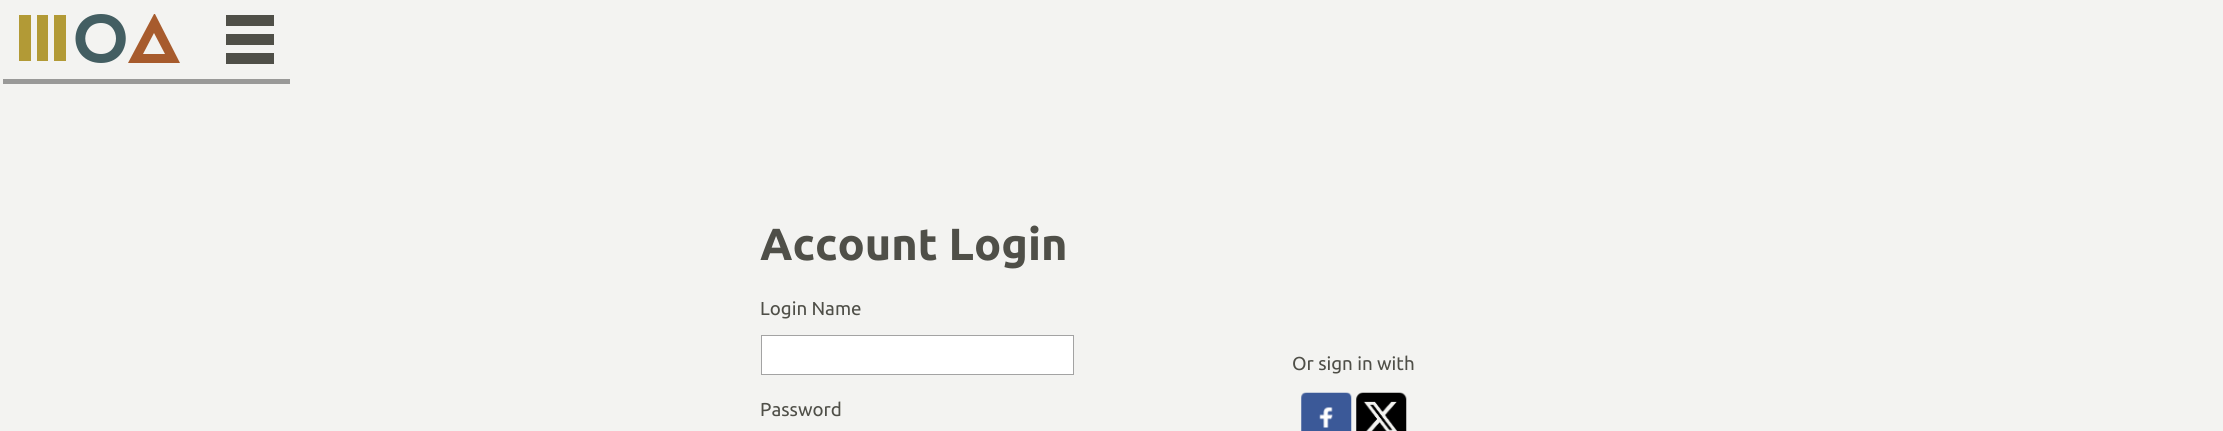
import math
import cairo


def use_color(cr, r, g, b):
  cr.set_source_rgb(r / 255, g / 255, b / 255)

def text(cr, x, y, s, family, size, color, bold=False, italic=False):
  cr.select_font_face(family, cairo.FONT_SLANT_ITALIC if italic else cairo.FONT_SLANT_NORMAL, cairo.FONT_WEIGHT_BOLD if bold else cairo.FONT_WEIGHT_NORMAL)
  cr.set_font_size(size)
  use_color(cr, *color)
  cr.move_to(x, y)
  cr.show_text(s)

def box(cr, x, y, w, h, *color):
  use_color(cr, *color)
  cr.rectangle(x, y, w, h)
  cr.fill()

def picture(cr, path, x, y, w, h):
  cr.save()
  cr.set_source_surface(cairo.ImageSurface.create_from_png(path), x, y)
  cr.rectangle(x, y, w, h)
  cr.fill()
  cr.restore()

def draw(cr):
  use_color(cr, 243, 243, 241)
  cr.paint()
  box(cr, 3, 79, 287, 5, 153, 153, 152)
  use_color(cr, 178, 154, 54)
  cr.set_fill_rule(cairo.FILL_RULE_EVEN_ODD)
  cr.new_path()
  cr.move_to(37, 61)
  cr.line_to(48, 61)
  cr.line_to(48, 15)
  cr.line_to(37, 15)
  cr.close_path()
  cr.move_to(66, 15)
  cr.line_to(54, 15)
  cr.line_to(54, 61)
  cr.line_to(66, 61)
  cr.close_path()
  cr.move_to(31, 15)
  cr.line_to(19, 15)
  cr.line_to(19, 61)
  cr.line_to(31, 61)
  cr.close_path()
  cr.fill()
  use_color(cr, 67, 94, 98)
  cr.new_path()
  cr.move_to(101, 54)
  cr.curve_to(80, 54, 80, 23, 101, 23)
  cr.curve_to(121, 23, 121, 54, 101, 54)
  cr.move_to(101, 14)
  cr.curve_to(67, 14, 67, 63, 101, 63)
  cr.curve_to(134, 63, 134, 14, 101, 14)
  cr.fill()
  use_color(cr, 167, 91, 45)
  cr.new_path()
  cr.move_to(165, 54)
  cr.line_to(143, 54)
  cr.line_to(154, 33)
  cr.close_path()
  cr.move_to(155, 14)
  cr.line_to(154, 14)
  cr.line_to(128, 63)
  cr.line_to(129, 63)
  cr.line_to(180, 63)
  cr.close_path()
  cr.fill()
  box(cr, 226, 34, 48, 11, 79, 79, 72)
  box(cr, 226, 15, 48, 11, 79, 79, 72)
  box(cr, 226, 53, 48, 11, 79, 79, 72)
  use_color(cr, 255, 255, 255)
  cr.rectangle(761.5, 335.5, 312, 39)
  cr.fill_preserve()
  use_color(cr, 163, 163, 163)
  cr.set_line_width(1)
  cr.stroke()
  picture(cr, "img_01.png", 1301, 392, 51, 39)
  picture(cr, "img_02.png", 1356, 392, 51, 39)
  text(cr, 760, 260, "Account Login", "Ubuntu", 45, (79, 79, 72), bold=True)
  text(cr, 760, 315, "Login Name", "Ubuntu", 18.75, (79, 79, 72))
  text(cr, 760, 416, "Password", "Ubuntu", 18.75, (79, 79, 72))
  text(cr, 1292, 370, "Or sign in with", "Ubuntu", 18.75, (79, 79, 72))


surface = cairo.ImageSurface(cairo.FORMAT_RGB24, 2223, 431)
cr = cairo.Context(surface)
options = cairo.FontOptions()
options.set_hint_metrics(cairo.HINT_METRICS_OFF)
options.set_hint_style(cairo.HINT_STYLE_NONE)
cr.set_font_options(options)
cr.set_miter_limit(4)
draw(cr)
surface.write_to_png("out.png")
